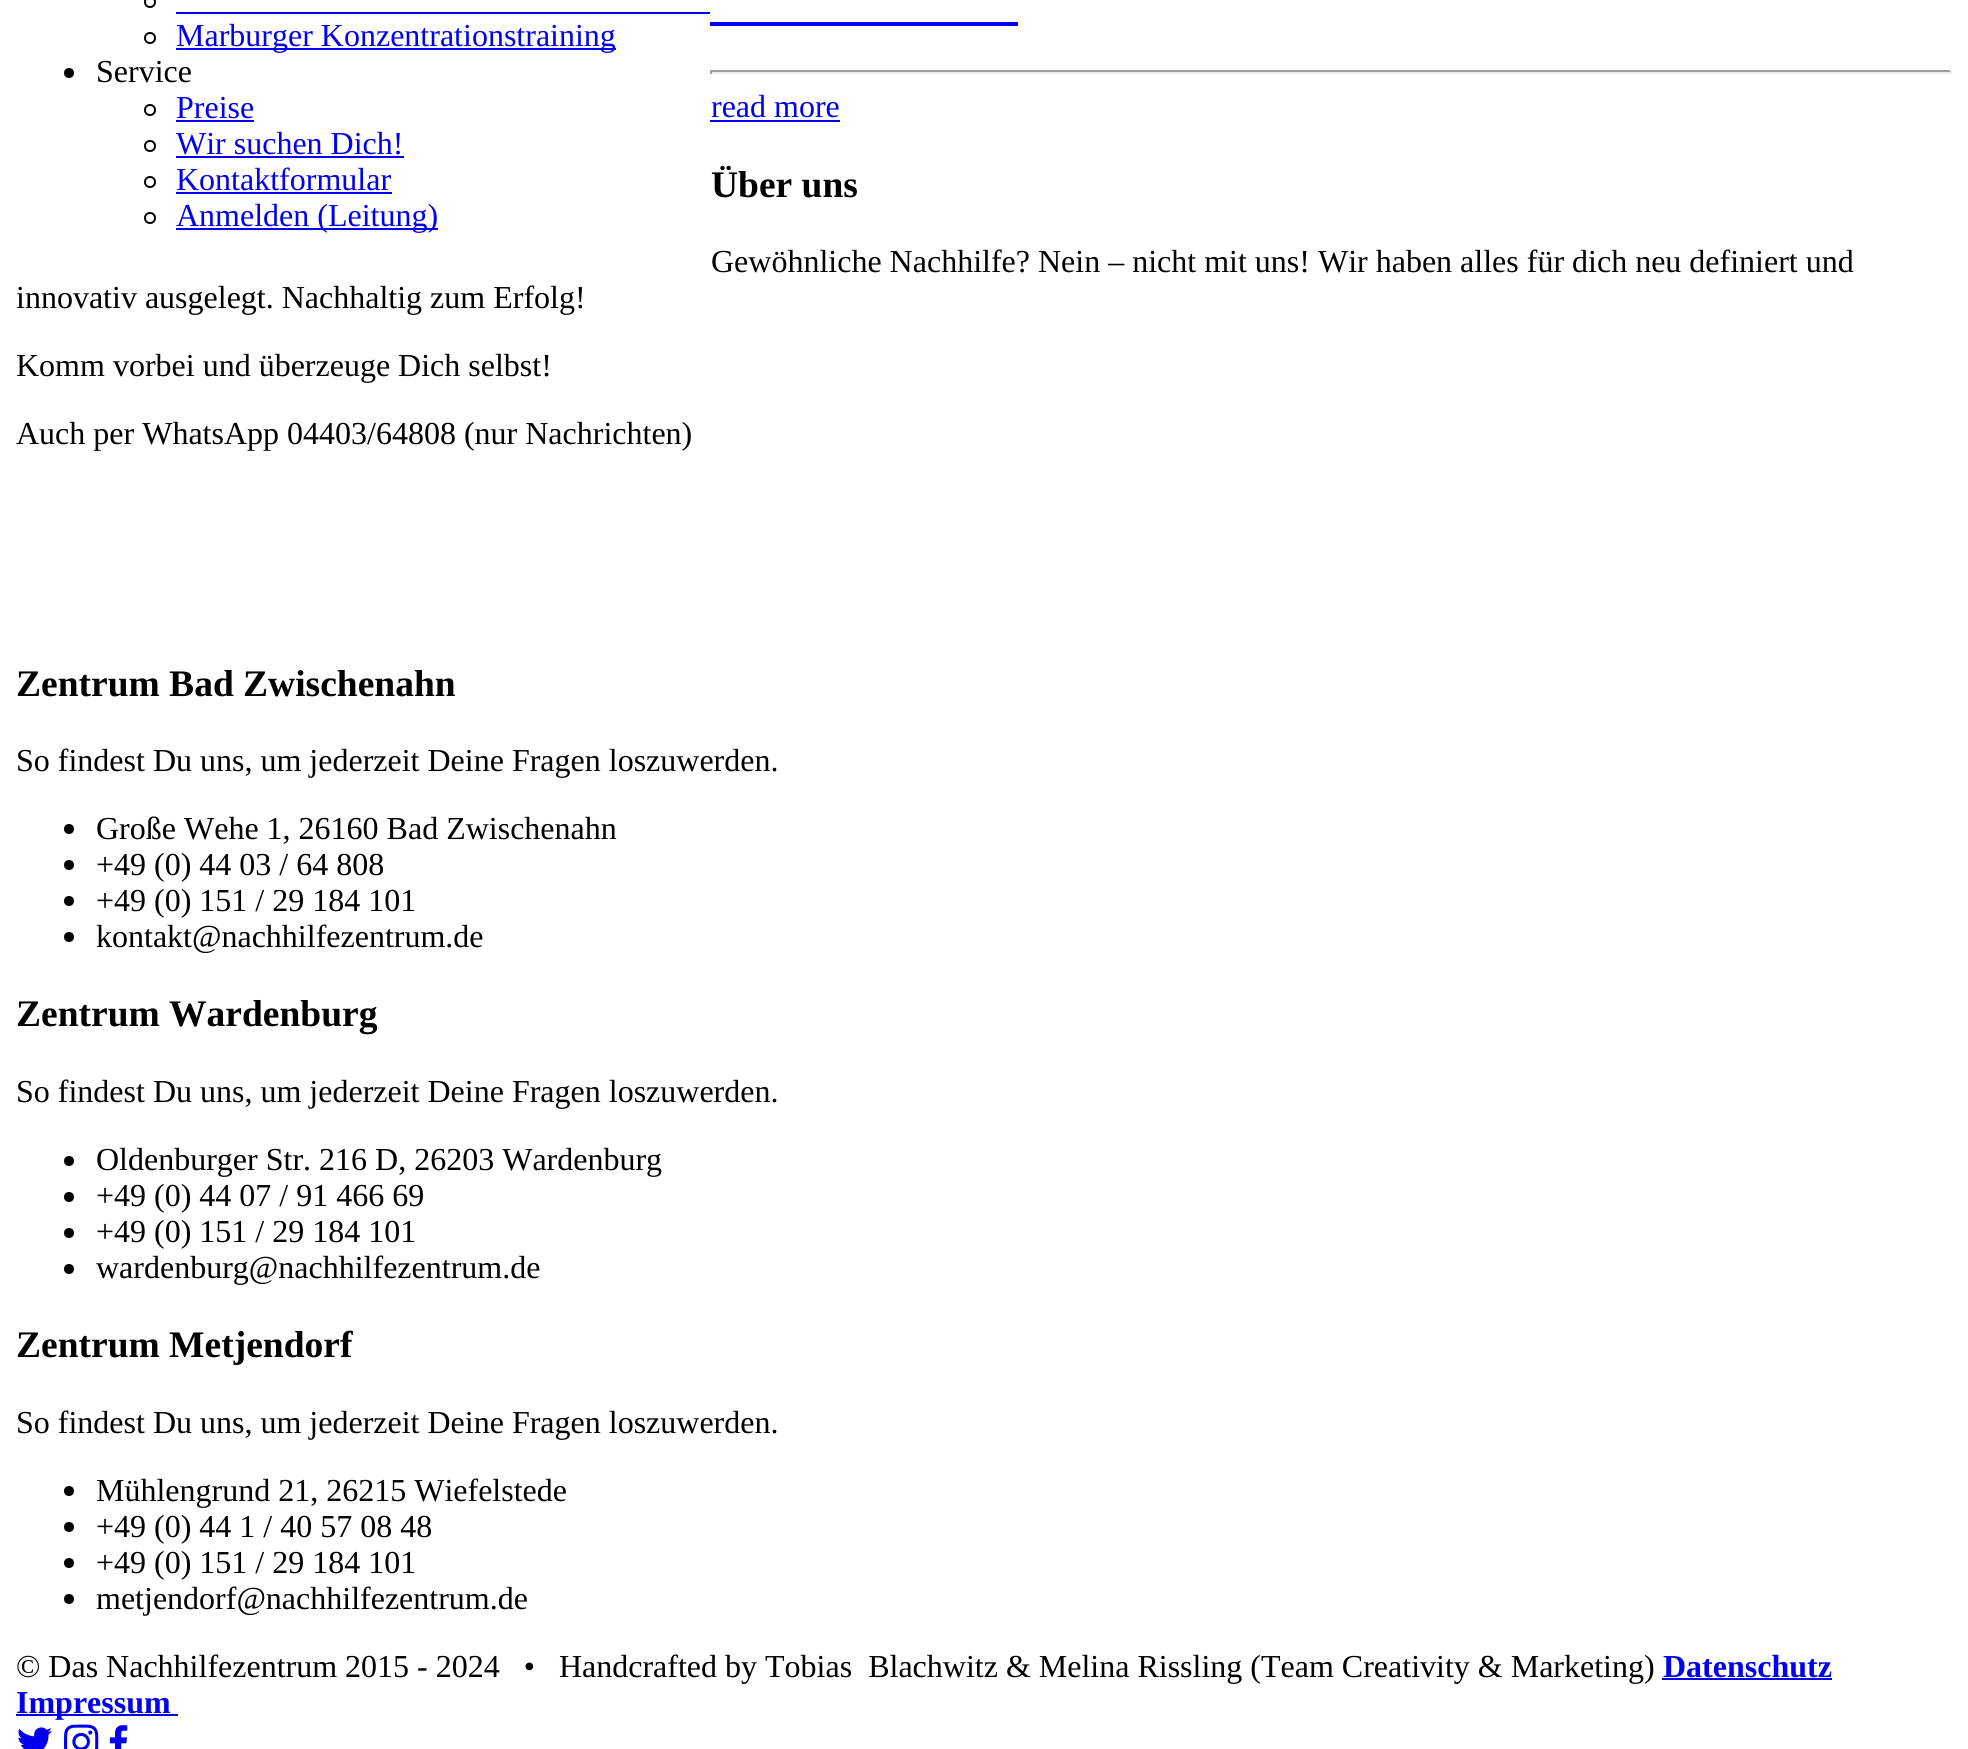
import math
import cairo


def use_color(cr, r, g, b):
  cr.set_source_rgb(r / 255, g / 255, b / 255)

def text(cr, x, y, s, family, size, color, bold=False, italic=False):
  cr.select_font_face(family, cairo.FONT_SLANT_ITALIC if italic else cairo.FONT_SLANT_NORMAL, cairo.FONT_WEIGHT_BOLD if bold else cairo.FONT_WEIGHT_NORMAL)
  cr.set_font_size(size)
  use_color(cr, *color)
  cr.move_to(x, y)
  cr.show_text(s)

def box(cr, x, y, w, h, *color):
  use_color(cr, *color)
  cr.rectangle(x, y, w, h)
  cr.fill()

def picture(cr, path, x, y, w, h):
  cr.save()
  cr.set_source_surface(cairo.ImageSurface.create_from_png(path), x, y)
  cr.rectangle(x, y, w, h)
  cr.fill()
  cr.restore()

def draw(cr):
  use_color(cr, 255, 255, 255)
  cr.paint()
  cr.arc(150, 2, 5, 0, 2 * math.pi)
  use_color(cr, 0, 0, 0)
  cr.stroke()
  box(cr, 176, 12, 534, 2, 0, 0, 238)
  cr.arc(150, 38, 5, 0, 2 * math.pi)
  use_color(cr, 0, 0, 0)
  cr.stroke()
  box(cr, 176, 48, 440, 2, 0, 0, 238)
  use_color(cr, 0, 0, 0)
  cr.arc(69, 73, 5, 0, 2 * math.pi)
  cr.fill()
  cr.arc(150, 110, 5, 0, 2 * math.pi)
  cr.stroke()
  box(cr, 176, 120, 78, 2, 0, 0, 238)
  cr.arc(150, 146, 5, 0, 2 * math.pi)
  use_color(cr, 0, 0, 0)
  cr.stroke()
  box(cr, 176, 156, 228, 2, 0, 0, 238)
  cr.arc(150, 182, 5, 0, 2 * math.pi)
  use_color(cr, 0, 0, 0)
  cr.stroke()
  box(cr, 176, 192, 216, 2, 0, 0, 238)
  cr.arc(150, 218, 5, 0, 2 * math.pi)
  use_color(cr, 0, 0, 0)
  cr.stroke()
  box(cr, 176, 228, 262, 2, 0, 0, 238)
  box(cr, 710, 22, 308, 4, 0, 0, 238)
  box(cr, 710, 70, 1242, 2, 159, 159, 159)
  box(cr, 1950, 70, 2, 4, 238, 238, 238)
  box(cr, 710, 72, 1242, 2, 238, 238, 238)
  box(cr, 710, 70, 2, 4, 159, 159, 159)
  box(cr, 710, 120, 130, 2, 0, 0, 238)
  use_color(cr, 0, 0, 0)
  cr.arc(69, 829, 5, 0, 2 * math.pi)
  cr.fill()
  cr.arc(69, 865, 5, 0, 2 * math.pi)
  cr.fill()
  cr.arc(69, 901, 5, 0, 2 * math.pi)
  cr.fill()
  cr.arc(69, 937, 5, 0, 2 * math.pi)
  cr.fill()
  cr.arc(69, 1161, 5, 0, 2 * math.pi)
  cr.fill()
  cr.arc(69, 1197, 5, 0, 2 * math.pi)
  cr.fill()
  cr.arc(69, 1233, 5, 0, 2 * math.pi)
  cr.fill()
  cr.arc(69, 1269, 5, 0, 2 * math.pi)
  cr.fill()
  cr.arc(69, 1491, 5, 0, 2 * math.pi)
  cr.fill()
  cr.arc(69, 1527, 5, 0, 2 * math.pi)
  cr.fill()
  cr.arc(69, 1563, 5, 0, 2 * math.pi)
  cr.fill()
  cr.arc(69, 1599, 5, 0, 2 * math.pi)
  cr.fill()
  box(cr, 1662, 1678, 170, 2, 0, 0, 238)
  box(cr, 16, 1714, 162, 2, 0, 0, 238)
  picture(cr, "img_01.png", 18, 1727, 34, 22)
  picture(cr, "img_02.png", 64, 1724, 35, 25)
  picture(cr, "img_03.png", 109, 1725, 19, 24)
  text(cr, 176, 46, "Marburger Konzentrationstraining", "Liberation Serif", 32, (0, 0, 238))
  text(cr, 96, 82, "Service", "Liberation Serif", 32, (0, 0, 0))
  text(cr, 176, 118, "Preise", "Liberation Serif", 32, (0, 0, 238))
  text(cr, 176, 154, "Wir suchen Dich!", "Liberation Serif", 32, (0, 0, 238))
  text(cr, 176, 190, "Kontaktformular", "Liberation Serif", 32, (0, 0, 238))
  text(cr, 176, 226, "Anmelden (Leitung)", "Liberation Serif", 32, (0, 0, 238))
  text(cr, 711, 117, "read more", "Liberation Serif", 32, (0, 0, 238))
  text(cr, 711, 197, "Über uns", "Liberation Serif", 37.5, (0, 0, 0), bold=True)
  text(cr, 711, 272, "Gewöhnliche Nachhilfe? Nein – nicht mit uns! Wir haben alles für dich neu definiert und", "Liberation Serif", 32, (0, 0, 0))
  text(cr, 16, 308, "innovativ ausgelegt. Nachhaltig zum Erfolg!", "Liberation Serif", 32, (0, 0, 0))
  text(cr, 16, 376, "Komm vorbei und überzeuge Dich selbst!", "Liberation Serif", 32, (0, 0, 0))
  text(cr, 16, 444, "Auch per WhatsApp 04403/64808 (nur Nachrichten)", "Liberation Serif", 32, (0, 0, 0))
  text(cr, 16, 696, "Zentrum Bad Zwischenahn", "Liberation Serif", 37.5, (0, 0, 0), bold=True)
  text(cr, 16, 771, "So findest Du uns, um jederzeit Deine Fragen loszuwerden.", "Liberation Serif", 32, (0, 0, 0))
  text(cr, 96, 839, "Große Wehe 1, 26160 Bad Zwischenahn", "Liberation Serif", 32, (0, 0, 0))
  text(cr, 96, 875, "+49 (0) 44 03 / 64 808", "Liberation Serif", 32, (0, 0, 0))
  text(cr, 96, 911, "+49 (0) 151 / 29 184 101", "Liberation Serif", 32, (0, 0, 0))
  text(cr, 96, 947, "kontakt@nachhilfezentrum.de", "Liberation Serif", 32, (0, 0, 0))
  text(cr, 16, 1026, "Zentrum Wardenburg", "Liberation Serif", 37.5, (0, 0, 0), bold=True)
  text(cr, 16, 1102, "So findest Du uns, um jederzeit Deine Fragen loszuwerden.", "Liberation Serif", 32, (0, 0, 0))
  text(cr, 96, 1170, "Oldenburger Str. 216 D, 26203 Wardenburg", "Liberation Serif", 32, (0, 0, 0))
  text(cr, 96, 1206, "+49 (0) 44 07 / 91 466 69", "Liberation Serif", 32, (0, 0, 0))
  text(cr, 96, 1242, "+49 (0) 151 / 29 184 101", "Liberation Serif", 32, (0, 0, 0))
  text(cr, 96, 1278, "wardenburg@nachhilfezentrum.de", "Liberation Serif", 32, (0, 0, 0))
  text(cr, 16, 1357, "Zentrum Metjendorf", "Liberation Serif", 37.5, (0, 0, 0), bold=True)
  text(cr, 16, 1433, "So findest Du uns, um jederzeit Deine Fragen loszuwerden.", "Liberation Serif", 32, (0, 0, 0))
  text(cr, 96, 1501, "Mühlengrund 21, 26215 Wiefelstede", "Liberation Serif", 32, (0, 0, 0))
  text(cr, 96, 1537, "+49 (0) 44 1 / 40 57 08 48", "Liberation Serif", 32, (0, 0, 0))
  text(cr, 96, 1573, "+49 (0) 151 / 29 184 101", "Liberation Serif", 32, (0, 0, 0))
  text(cr, 96, 1609, "metjendorf@nachhilfezentrum.de", "Liberation Serif", 32, (0, 0, 0))
  text(cr, 16, 1677, "© Das Nachhilfezentrum 2015 - 2024   •   Handcrafted by Tobias  Blachwitz & Melina Rissling (Team Creativity & Marketing)", "Liberation Serif", 32, (0, 0, 0))
  text(cr, 1663, 1677, "Datenschutz", "Liberation Serif", 32, (0, 0, 238), bold=True)
  text(cr, 16, 1713, "Impressum", "Liberation Serif", 32, (0, 0, 238), bold=True)


surface = cairo.ImageSurface(cairo.FORMAT_RGB24, 1968, 1749)
cr = cairo.Context(surface)
options = cairo.FontOptions()
options.set_hint_metrics(cairo.HINT_METRICS_OFF)
options.set_hint_style(cairo.HINT_STYLE_NONE)
cr.set_font_options(options)
cr.set_miter_limit(4)
draw(cr)
surface.write_to_png("out.png")
